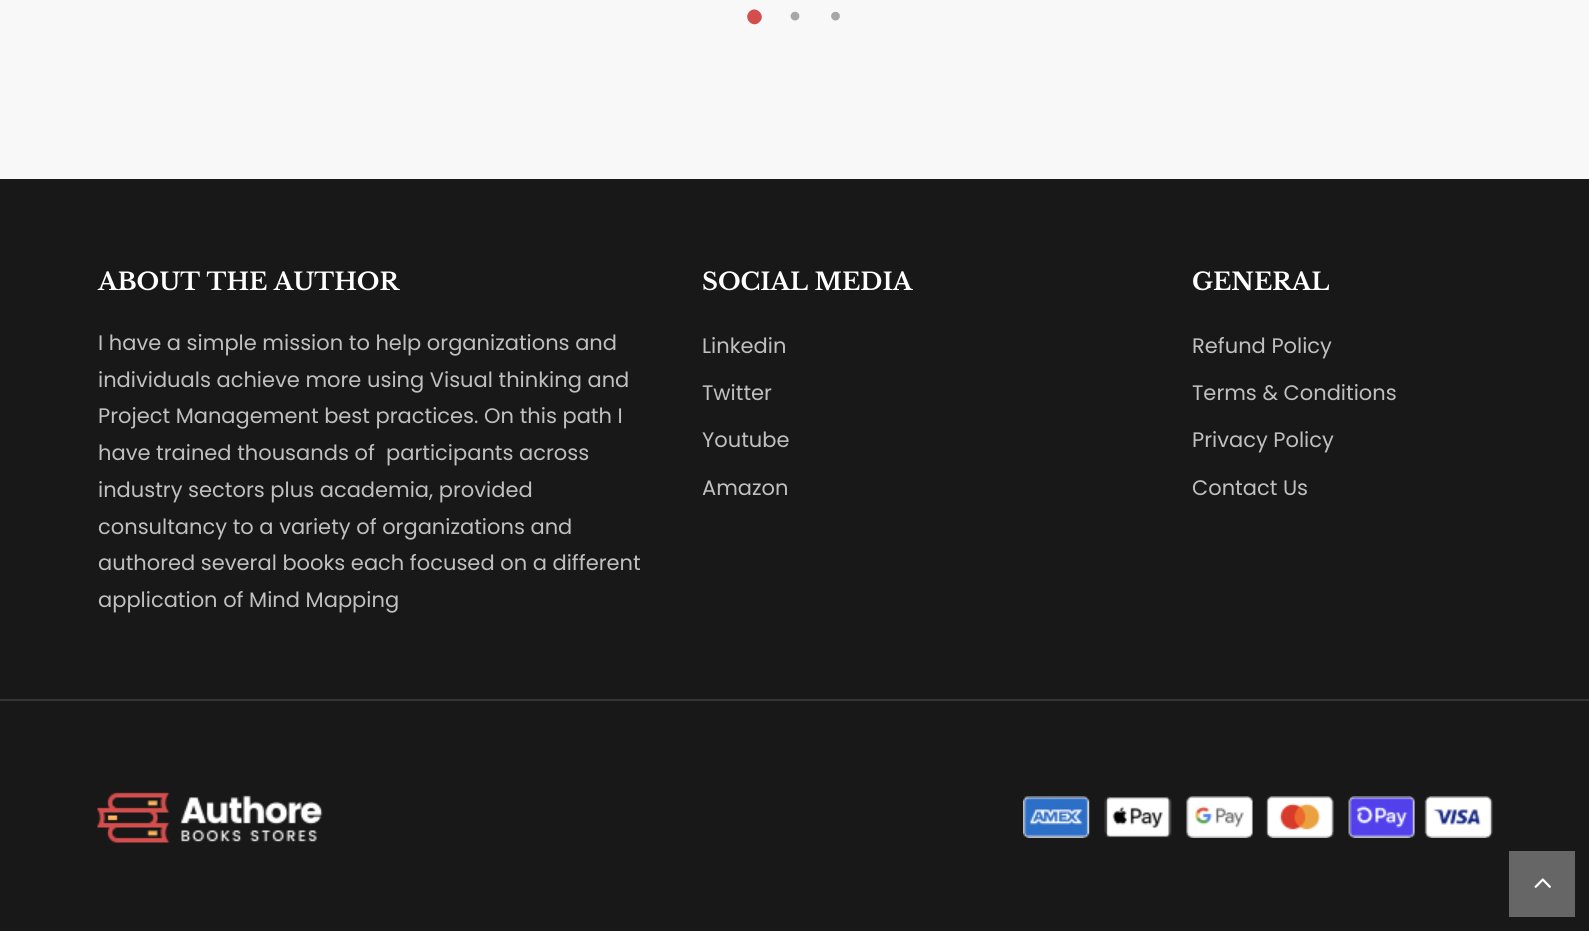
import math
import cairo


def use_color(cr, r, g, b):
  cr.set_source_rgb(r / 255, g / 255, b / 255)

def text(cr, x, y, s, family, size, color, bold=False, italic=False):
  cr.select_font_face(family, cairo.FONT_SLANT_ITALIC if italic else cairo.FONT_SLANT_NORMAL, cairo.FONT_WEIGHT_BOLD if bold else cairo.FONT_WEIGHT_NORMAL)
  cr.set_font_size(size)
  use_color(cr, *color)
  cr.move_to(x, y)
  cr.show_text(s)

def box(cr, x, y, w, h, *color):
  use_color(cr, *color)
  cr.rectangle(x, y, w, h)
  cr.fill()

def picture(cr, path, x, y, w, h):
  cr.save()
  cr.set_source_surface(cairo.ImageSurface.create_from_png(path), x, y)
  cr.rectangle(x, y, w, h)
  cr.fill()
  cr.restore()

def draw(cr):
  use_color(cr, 24, 24, 24)
  cr.paint()
  box(cr, 0, 0, 1589, 179, 248, 248, 248)
  use_color(cr, 213, 78, 78)
  cr.new_path()
  cr.move_to(749.5, 11.5)
  cr.curve_to(756, 5, 766.5, 15.5, 759.5, 22)
  cr.curve_to(753, 29, 742.5, 18.5, 749.5, 11.5)
  cr.close_path()
  cr.fill()
  picture(cr, "img_01.png", 790, 11, 10, 10)
  picture(cr, "img_02.png", 831, 11, 9, 10)
  box(cr, 0, 699, 1589, 2, 52, 52, 52)
  picture(cr, "img_03.png", 97, 792, 226, 51)
  picture(cr, "img_04.png", 1023, 796, 470, 42)
  box(cr, 1509, 851, 66, 66, 102, 102, 102)
  picture(cr, "img_05.png", 1534, 878, 17, 10)
  text(cr, 98, 290, "ABOUT THE AUTHOR", "Libre Baskerville", 24, (255, 255, 255), bold=True)
  text(cr, 98, 350, "I have a simple mission to help organizations and", "Poppins", 21, (192, 192, 192))
  text(cr, 98, 387, "individuals achieve more using Visual thinking and", "Poppins", 21, (192, 192, 192))
  text(cr, 98, 423, "Project Management best practices. On this path I", "Poppins", 21, (192, 192, 192))
  text(cr, 98, 460, "have trained thousands of  participants across", "Poppins", 21, (192, 192, 192))
  text(cr, 98, 497, "industry sectors plus academia, provided", "Poppins", 21, (192, 192, 192))
  text(cr, 98, 534, "consultancy to a variety of organizations and", "Poppins", 21, (192, 192, 192))
  text(cr, 98, 570, "authored several books each focused on a different", "Poppins", 21, (192, 192, 192))
  text(cr, 98, 607, "application of Mind Mapping", "Poppins", 21, (192, 192, 192))
  text(cr, 702, 290, "SOCIAL MEDIA", "Libre Baskerville", 24, (255, 255, 255), bold=True)
  text(cr, 702, 353, "Linkedin", "Poppins", 21, (192, 192, 192))
  text(cr, 702, 400, "Twitter", "Poppins", 21, (192, 192, 192))
  text(cr, 702, 447, "Youtube", "Poppins", 21, (192, 192, 192))
  text(cr, 702, 495, "Amazon", "Poppins", 21, (192, 192, 192))
  text(cr, 1192, 290, "GENERAL", "Libre Baskerville", 24, (255, 255, 255), bold=True)
  text(cr, 1192, 353, "Refund Policy", "Poppins", 21, (192, 192, 192))
  text(cr, 1192, 400, "Terms & Conditions", "Poppins", 21, (192, 192, 192))
  text(cr, 1192, 447, "Privacy Policy", "Poppins", 21, (192, 192, 192))
  text(cr, 1192, 495, "Contact Us", "Poppins", 21, (192, 192, 192))


surface = cairo.ImageSurface(cairo.FORMAT_RGB24, 1589, 931)
cr = cairo.Context(surface)
options = cairo.FontOptions()
options.set_hint_metrics(cairo.HINT_METRICS_OFF)
options.set_hint_style(cairo.HINT_STYLE_NONE)
cr.set_font_options(options)
cr.set_miter_limit(4)
draw(cr)
surface.write_to_png("out.png")
